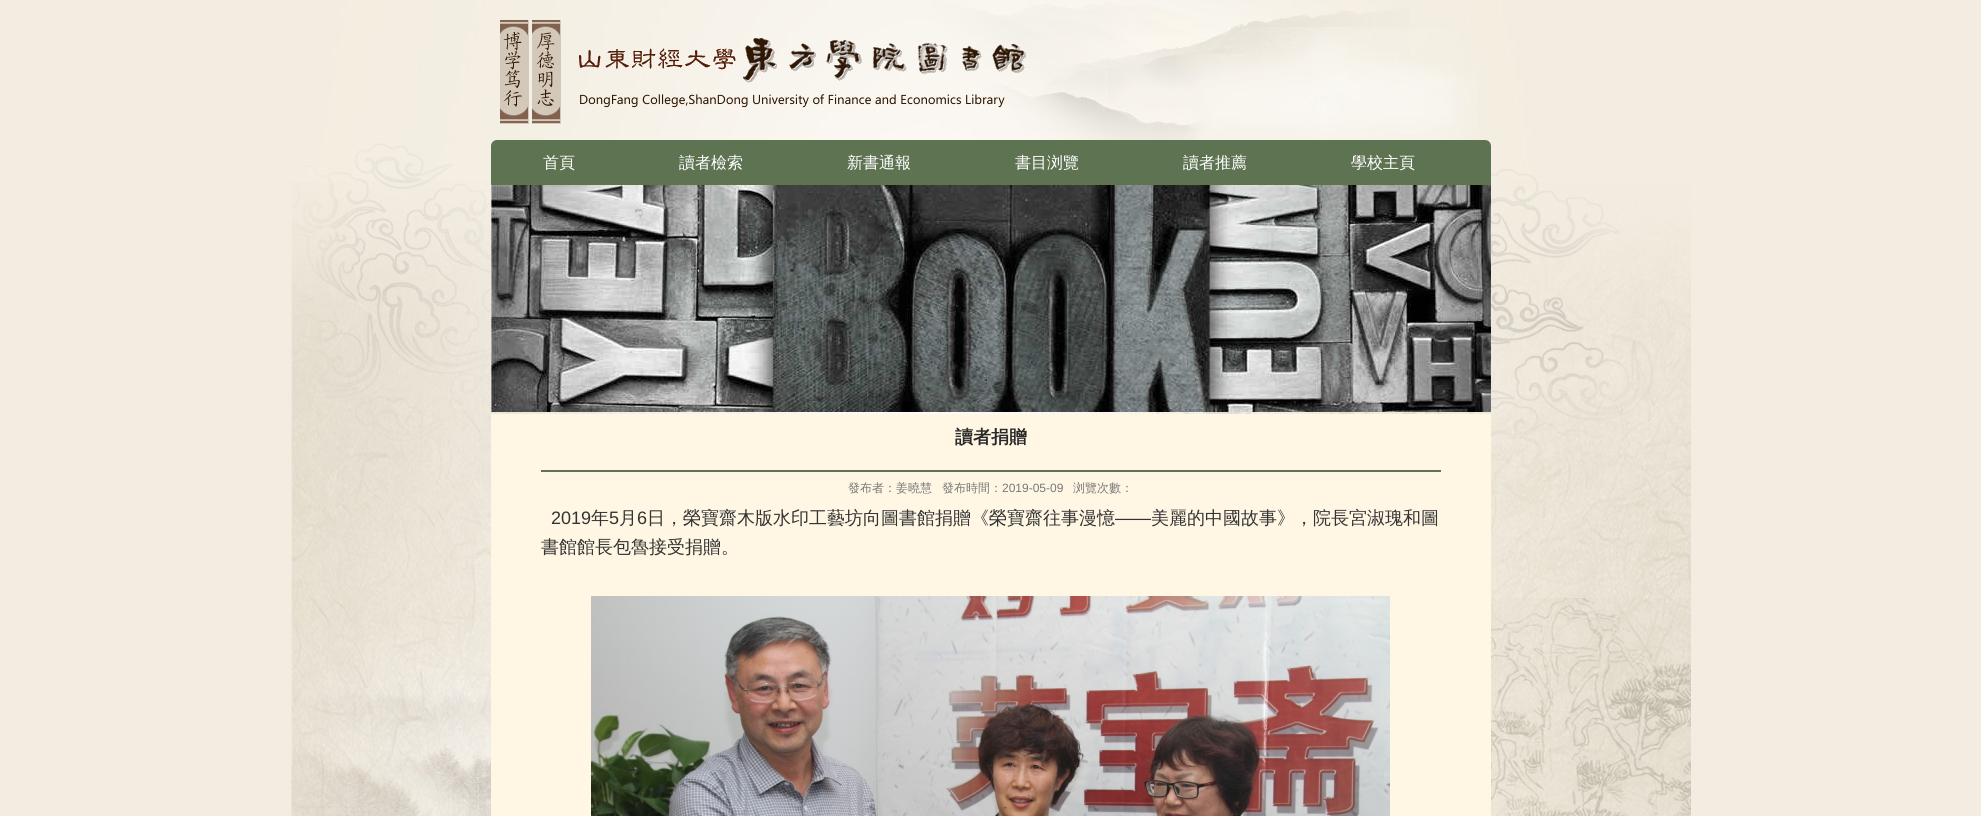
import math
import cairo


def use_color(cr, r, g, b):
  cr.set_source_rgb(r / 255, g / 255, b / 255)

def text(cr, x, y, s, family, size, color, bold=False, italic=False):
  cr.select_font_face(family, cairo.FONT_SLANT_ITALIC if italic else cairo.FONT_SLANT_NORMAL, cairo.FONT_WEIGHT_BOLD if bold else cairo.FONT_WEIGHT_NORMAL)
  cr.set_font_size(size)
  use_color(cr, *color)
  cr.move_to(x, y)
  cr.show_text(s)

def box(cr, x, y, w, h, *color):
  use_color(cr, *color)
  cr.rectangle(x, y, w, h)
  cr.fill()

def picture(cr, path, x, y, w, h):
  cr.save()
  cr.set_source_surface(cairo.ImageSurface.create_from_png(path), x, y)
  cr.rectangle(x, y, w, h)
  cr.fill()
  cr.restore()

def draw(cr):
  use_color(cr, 243, 237, 225)
  cr.paint()
  picture(cr, "img_01.png", 291, 0, 1400, 816)
  picture(cr, "img_02.png", 500, 20, 526, 104)
  picture(cr, "img_03.png", 491, 140, 1000, 45)
  picture(cr, "img_04.png", 491, 185, 1000, 227)
  box(cr, 491, 414, 1000, 402, 255, 247, 228)
  box(cr, 541, 470, 900, 2, 94, 115, 81)
  picture(cr, "img_05.png", 591, 596, 799, 220)
  text(cr, 543, 168, "首頁", "WenQuanYi Zen Hei Medium", 16, (255, 255, 255))
  text(cr, 679, 168, "讀者檢索", "WenQuanYi Zen Hei Medium", 16, (255, 255, 255))
  text(cr, 847, 168, "新書通報", "WenQuanYi Zen Hei Medium", 16, (255, 255, 255))
  text(cr, 1015, 168, "書目浏覽", "WenQuanYi Zen Hei Medium", 16, (255, 255, 255))
  text(cr, 1183, 168, "讀者推薦", "WenQuanYi Zen Hei Medium", 16, (255, 255, 255))
  text(cr, 1351, 168, "學校主頁", "WenQuanYi Zen Hei Medium", 16, (255, 255, 255))
  text(cr, 955, 443, "讀者捐贈", "WenQuanYi Zen Hei", 18, (40, 40, 40), bold=True)
  text(cr, 848, 492, "發布者：姜曉慧", "WenQuanYi Zen Hei Medium", 12, (120, 120, 120))
  text(cr, 942, 492, "發布時間：", "WenQuanYi Zen Hei Medium", 12, (120, 120, 120))
  text(cr, 1002, 492, "2019-05-09", "Liberation Sans", 12, (120, 120, 120))
  text(cr, 1073, 492, "浏覽次數：", "WenQuanYi Zen Hei Medium", 12, (120, 120, 120))
  text(cr, 551, 524, "2019", "Liberation Sans", 18, (51, 51, 51))
  text(cr, 591, 524, "年", "WenQuanYi Zen Hei Medium", 18, (51, 51, 51))
  text(cr, 609, 524, "5", "Liberation Sans", 18, (51, 51, 51))
  text(cr, 619, 524, "月", "WenQuanYi Zen Hei Medium", 18, (51, 51, 51))
  text(cr, 637, 524, "6", "Liberation Sans", 18, (51, 51, 51))
  text(cr, 647, 524, "日，榮寶齋木版水印工藝坊向圖書館捐贈《榮寶齋往事漫憶", "WenQuanYi Zen Hei Medium", 18, (51, 51, 51))
  text(cr, 1115, 524, "——", "Liberation Sans", 18, (51, 51, 51))
  text(cr, 1151, 524, "美麗的中國故事》，院長宮淑瑰和圖", "WenQuanYi Zen Hei Medium", 18, (51, 51, 51))
  text(cr, 541, 553, "書館館長包魯接受捐贈。", "WenQuanYi Zen Hei Medium", 18, (51, 51, 51))


surface = cairo.ImageSurface(cairo.FORMAT_RGB24, 1981, 816)
cr = cairo.Context(surface)
options = cairo.FontOptions()
options.set_hint_metrics(cairo.HINT_METRICS_OFF)
options.set_hint_style(cairo.HINT_STYLE_NONE)
cr.set_font_options(options)
cr.set_miter_limit(4)
draw(cr)
surface.write_to_png("out.png")
